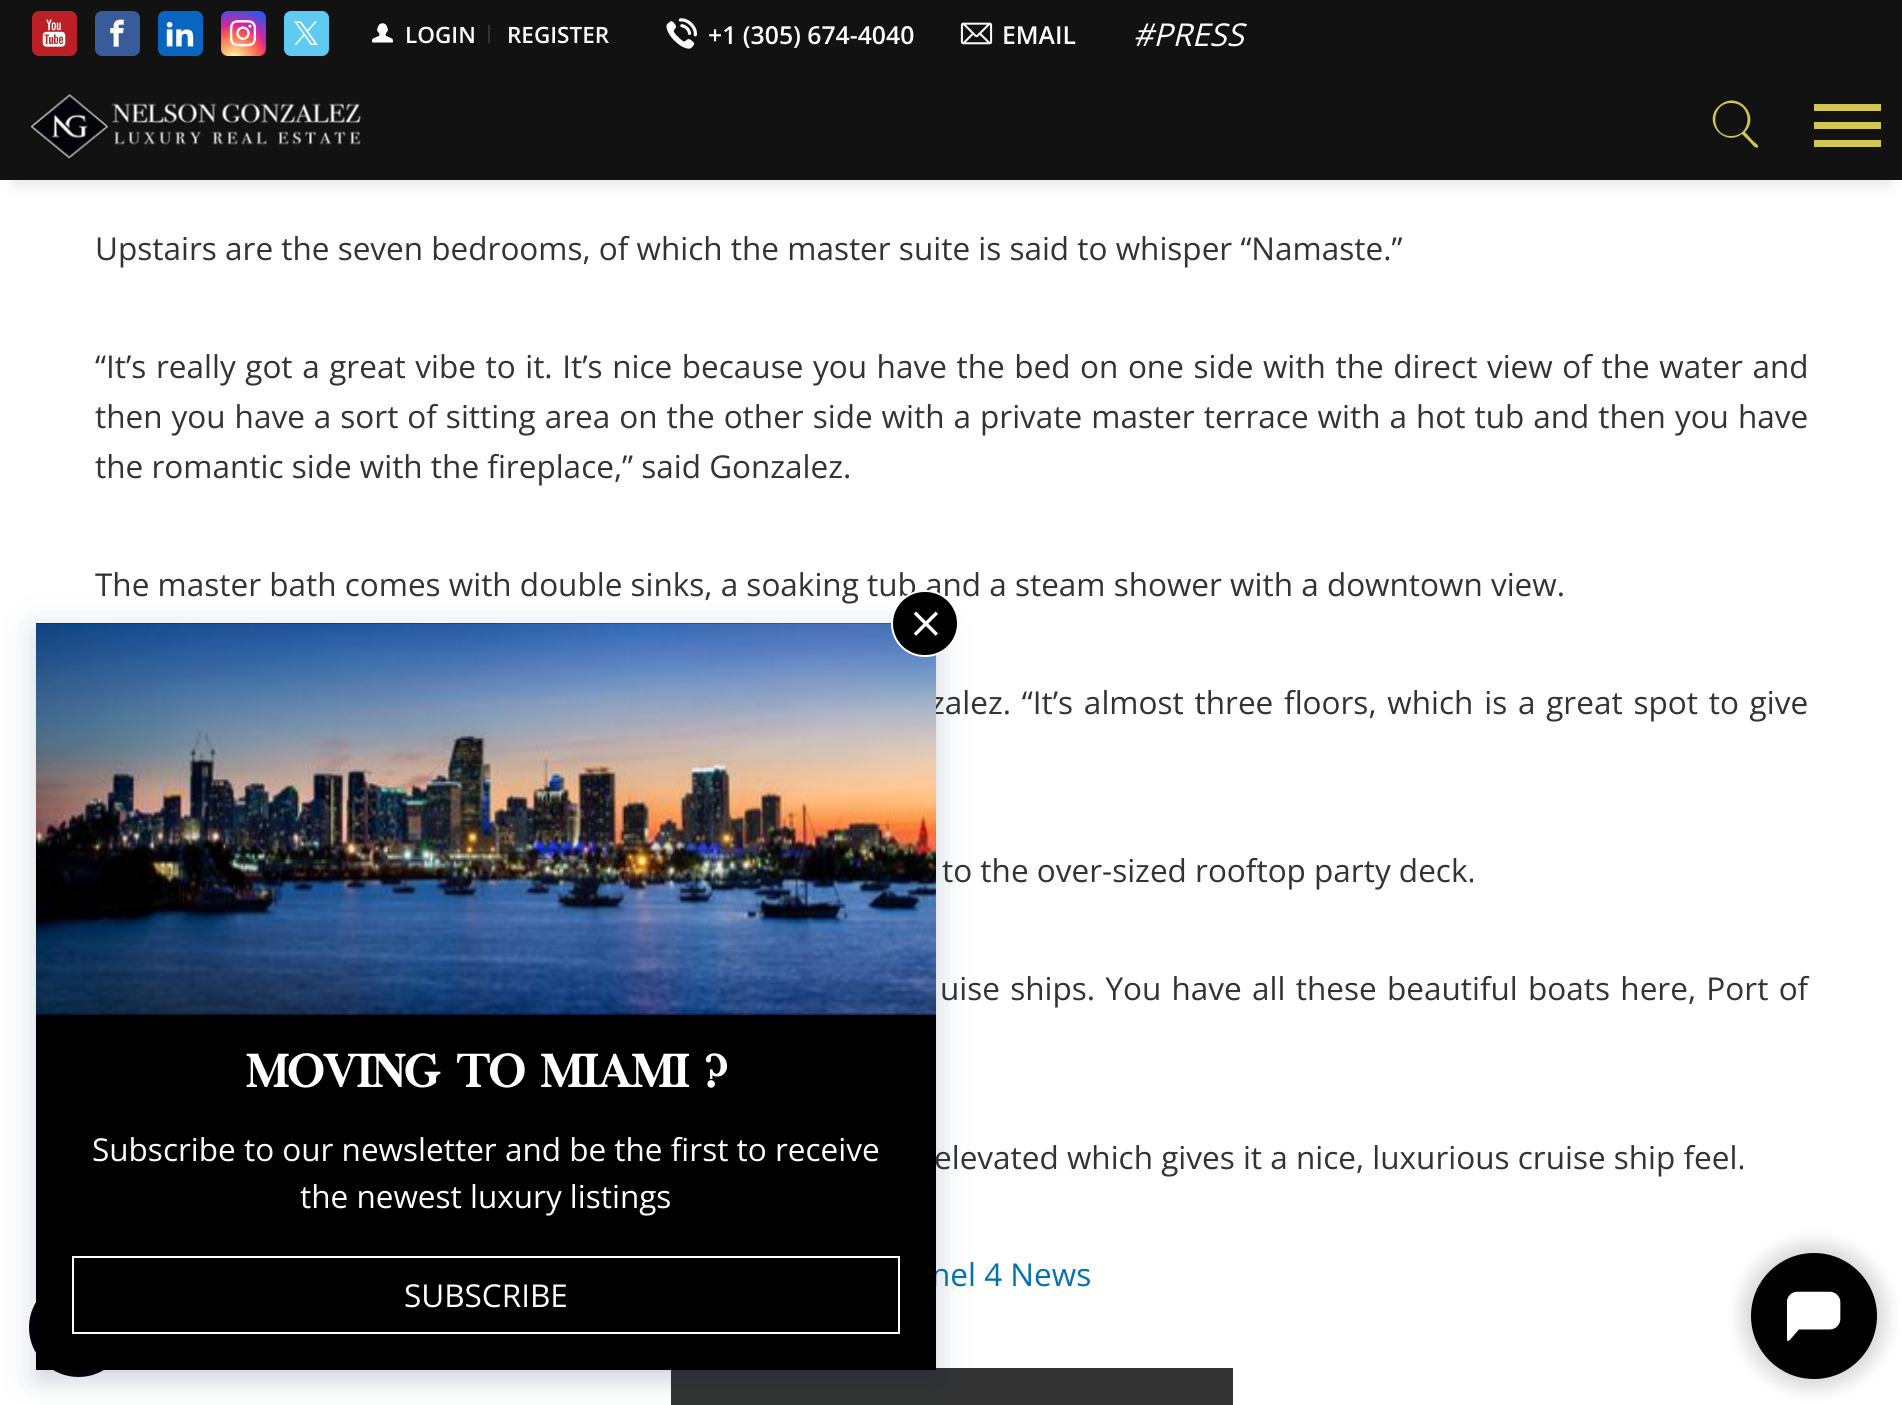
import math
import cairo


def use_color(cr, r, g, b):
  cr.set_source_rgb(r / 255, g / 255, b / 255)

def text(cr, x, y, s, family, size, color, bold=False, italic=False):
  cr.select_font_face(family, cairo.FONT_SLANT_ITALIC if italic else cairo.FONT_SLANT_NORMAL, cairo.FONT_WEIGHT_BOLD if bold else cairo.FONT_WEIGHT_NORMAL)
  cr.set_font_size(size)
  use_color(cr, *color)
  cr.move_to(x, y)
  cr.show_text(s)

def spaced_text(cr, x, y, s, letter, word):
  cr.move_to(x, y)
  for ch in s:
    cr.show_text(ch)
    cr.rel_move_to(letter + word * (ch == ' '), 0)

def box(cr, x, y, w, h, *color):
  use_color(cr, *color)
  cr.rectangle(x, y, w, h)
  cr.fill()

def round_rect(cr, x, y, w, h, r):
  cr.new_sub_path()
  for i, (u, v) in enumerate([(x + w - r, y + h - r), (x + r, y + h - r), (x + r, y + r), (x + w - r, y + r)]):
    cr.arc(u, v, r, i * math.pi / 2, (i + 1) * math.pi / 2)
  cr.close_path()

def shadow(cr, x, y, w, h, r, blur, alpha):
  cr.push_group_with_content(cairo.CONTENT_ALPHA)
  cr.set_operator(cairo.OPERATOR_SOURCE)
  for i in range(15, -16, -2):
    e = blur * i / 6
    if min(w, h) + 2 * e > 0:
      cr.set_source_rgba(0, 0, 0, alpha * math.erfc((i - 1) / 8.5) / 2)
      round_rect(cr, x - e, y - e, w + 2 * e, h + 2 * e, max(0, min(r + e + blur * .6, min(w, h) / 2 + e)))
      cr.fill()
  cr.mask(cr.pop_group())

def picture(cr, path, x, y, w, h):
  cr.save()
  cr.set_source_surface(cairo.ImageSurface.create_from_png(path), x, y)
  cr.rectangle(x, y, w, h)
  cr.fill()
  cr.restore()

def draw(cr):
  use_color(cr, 255, 255, 255)
  cr.paint()
  use_color(cr, 0, 0, 0)
  shadow(cr, 14, 32, 1876, 153, 0, 7, 0.1)
  box(cr, 0, 0, 1902, 180, 18, 18, 18)
  use_color(cr, 188, 32, 38)
  round_rect(cr, 32, 11, 45, 45, 7)
  cr.fill()
  picture(cr, "img_01.png", 42, 19, 24, 28)
  use_color(cr, 58, 91, 154)
  round_rect(cr, 95, 11, 45, 45, 7)
  cr.fill()
  picture(cr, "img_02.png", 110, 19, 14, 28)
  use_color(cr, 8, 102, 193)
  round_rect(cr, 158, 11, 45, 45, 7)
  cr.fill()
  picture(cr, "img_03.png", 166, 21, 28, 26)
  gradient = cairo.RadialGradient(234, 59, 0, 234, 59, 58)
  gradient.add_color_stop_rgba(0, 0.992, 0.957, 0.592, 1)
  gradient.add_color_stop_rgba(0.05, 0.992, 0.957, 0.592, 1)
  gradient.add_color_stop_rgba(0.45, 0.992, 0.349, 0.286, 1)
  gradient.add_color_stop_rgba(0.6, 0.839, 0.141, 0.624, 1)
  gradient.add_color_stop_rgba(0.9, 0.157, 0.353, 0.922, 1)
  cr.set_source(gradient)
  round_rect(cr, 221, 11, 45, 45, 7)
  cr.fill()
  picture(cr, "img_04.png", 229, 20, 28, 27)
  use_color(cr, 95, 203, 241)
  round_rect(cr, 284, 11, 45, 45, 7)
  cr.fill()
  picture(cr, "img_05.png", 294, 21, 24, 24)
  picture(cr, "img_06.png", 372, 23, 21, 20)
  box(cr, 488, 25, 2, 18, 51, 51, 51)
  picture(cr, "img_07.png", 666, 18, 31, 31)
  picture(cr, "img_08.png", 960, 22, 33, 23)
  picture(cr, "img_09.png", 29, 92, 332, 68)
  use_color(cr, 208, 198, 81)
  cr.new_path()
  cr.move_to(1742, 134)
  cr.curve_to(1723, 148, 1701, 120, 1720, 105)
  cr.curve_to(1738, 90, 1761, 116, 1745, 132)
  cr.line_to(1753, 141)
  cr.curve_to(1754, 142, 1759, 145, 1758, 147)
  cr.curve_to(1756, 150, 1751, 143, 1751, 143)
  cr.close_path()
  cr.move_to(1731, 136)
  cr.curve_to(1753, 136, 1753, 103, 1731, 103)
  cr.curve_to(1710, 103, 1710, 136, 1731, 136)
  cr.close_path()
  cr.fill()
  box(cr, 1814, 104, 67, 7, 208, 198, 81)
  box(cr, 1814, 122, 67, 7, 208, 198, 81)
  box(cr, 1814, 140, 67, 7, 208, 198, 81)
  box(cr, 671, 1368, 562, 37, 51, 51, 51)
  use_color(cr, 0, 0, 0)
  cr.arc(78.5, 1327.5, 49.5, 0, 2 * math.pi)
  cr.fill()
  use_color(cr, 29, 17, 51)
  shadow(cr, 43, 641, 886, 734, 0, 11, 0.12)
  use_color(cr, 9, 32, 77)
  shadow(cr, 32, 626, 909, 756, 0, 18, 0.12)
  use_color(cr, 0, 0, 0)
  shadow(cr, 1742, 1244, 144, 144, 72, 9, 0.16)
  use_color(cr, 0, 0, 0)
  cr.arc(1814, 1316, 63, 0, 2 * math.pi)
  cr.fill()
  picture(cr, "img_12.png", 1787, 1291, 54, 50)
  text(cr, 405, 43, "LOGIN", "Open Sans SemiBold", 22.5, (255, 255, 255))
  text(cr, 507, 43, "REGISTER", "Open Sans SemiBold", 22.5, (255, 255, 255))
  text(cr, 708, 44, "+1 (305) 674-4040", "Open Sans SemiBold", 24.75, (255, 255, 255))
  text(cr, 1002, 44, "EMAIL", "Open Sans SemiBold", 24.75, (255, 255, 255))
  text(cr, 1133, 46, "#PRESS", "Open Sans", 31.5, (255, 255, 255), italic=True)
  text(cr, 95, 260, "Upstairs are the seven bedrooms, of which the master suite is said to whisper “Namaste.”", "Open Sans", 31.5, (51, 51, 51))
  spaced_text(cr, 95, 378, "“It’s really got a great vibe to it. It’s nice because you have the bed on one side with the direct view of the water and", 0, 1.4)
  spaced_text(cr, 95, 428, "then you have a sort of sitting area on the other side with a private master terrace with a hot tub and then you have", 0, 0.8)
  text(cr, 95, 478, "the romantic side with the fireplace,” said Gonzalez.", "Open Sans", 31.5, (51, 51, 51))
  text(cr, 95, 596, "The master bath comes with double sinks, a soaking tub and a steam shower with a downtown view.", "Open Sans", 31.5, (51, 51, 51))
  spaced_text(cr, 930, 714, "zalez. “It’s almost three floors, which is a great spot to give", 0, 2.6)
  text(cr, 942, 882, "to the over-sized rooftop party deck.", "Open Sans", 31.5, (51, 51, 51))
  spaced_text(cr, 940, 1000, "uise ships. You have all these beautiful boats here, Port of", 0, 2.1)
  text(cr, 934, 1169, "elevated which gives it a nice, luxurious cruise ship feel.", "Open Sans", 31.5, (51, 51, 51))
  text(cr, 931, 1286, "nel 4 News", "Open Sans", 31.5, (0, 114, 172))
  box(cr, 36, 623, 900, 747, 0, 0, 0)
  picture(cr, "img_11.png", 36, 623, 900, 392)
  round_rect(cr, 892, 591, 66, 65, 32.5)
  cr.fill_preserve()
  use_color(cr, 255, 255, 255)
  cr.stroke()
  picture(cr, "img_10.png", 913, 611, 25, 25)
  text(cr, 246, 1087, "MOVING TO MIAMI ?", "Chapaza", 45, (255, 255, 255), bold=True)
  text(cr, 92, 1161, "Subscribe to our newsletter and be the first to receive", "Open Sans", 31.5, (255, 255, 255))
  text(cr, 300, 1208, "the newest luxury listings", "Open Sans", 31.5, (255, 255, 255))
  cr.rectangle(73, 1257, 826, 76)
  cr.stroke()
  text(cr, 404, 1307, "SUBSCRIBE", "Open Sans", 31.5, (255, 255, 255))


surface = cairo.ImageSurface(cairo.FORMAT_RGB24, 1902, 1405)
cr = cairo.Context(surface)
options = cairo.FontOptions()
options.set_hint_metrics(cairo.HINT_METRICS_OFF)
options.set_hint_style(cairo.HINT_STYLE_NONE)
cr.set_font_options(options)
cr.set_miter_limit(4)
draw(cr)
surface.write_to_png("out.png")
